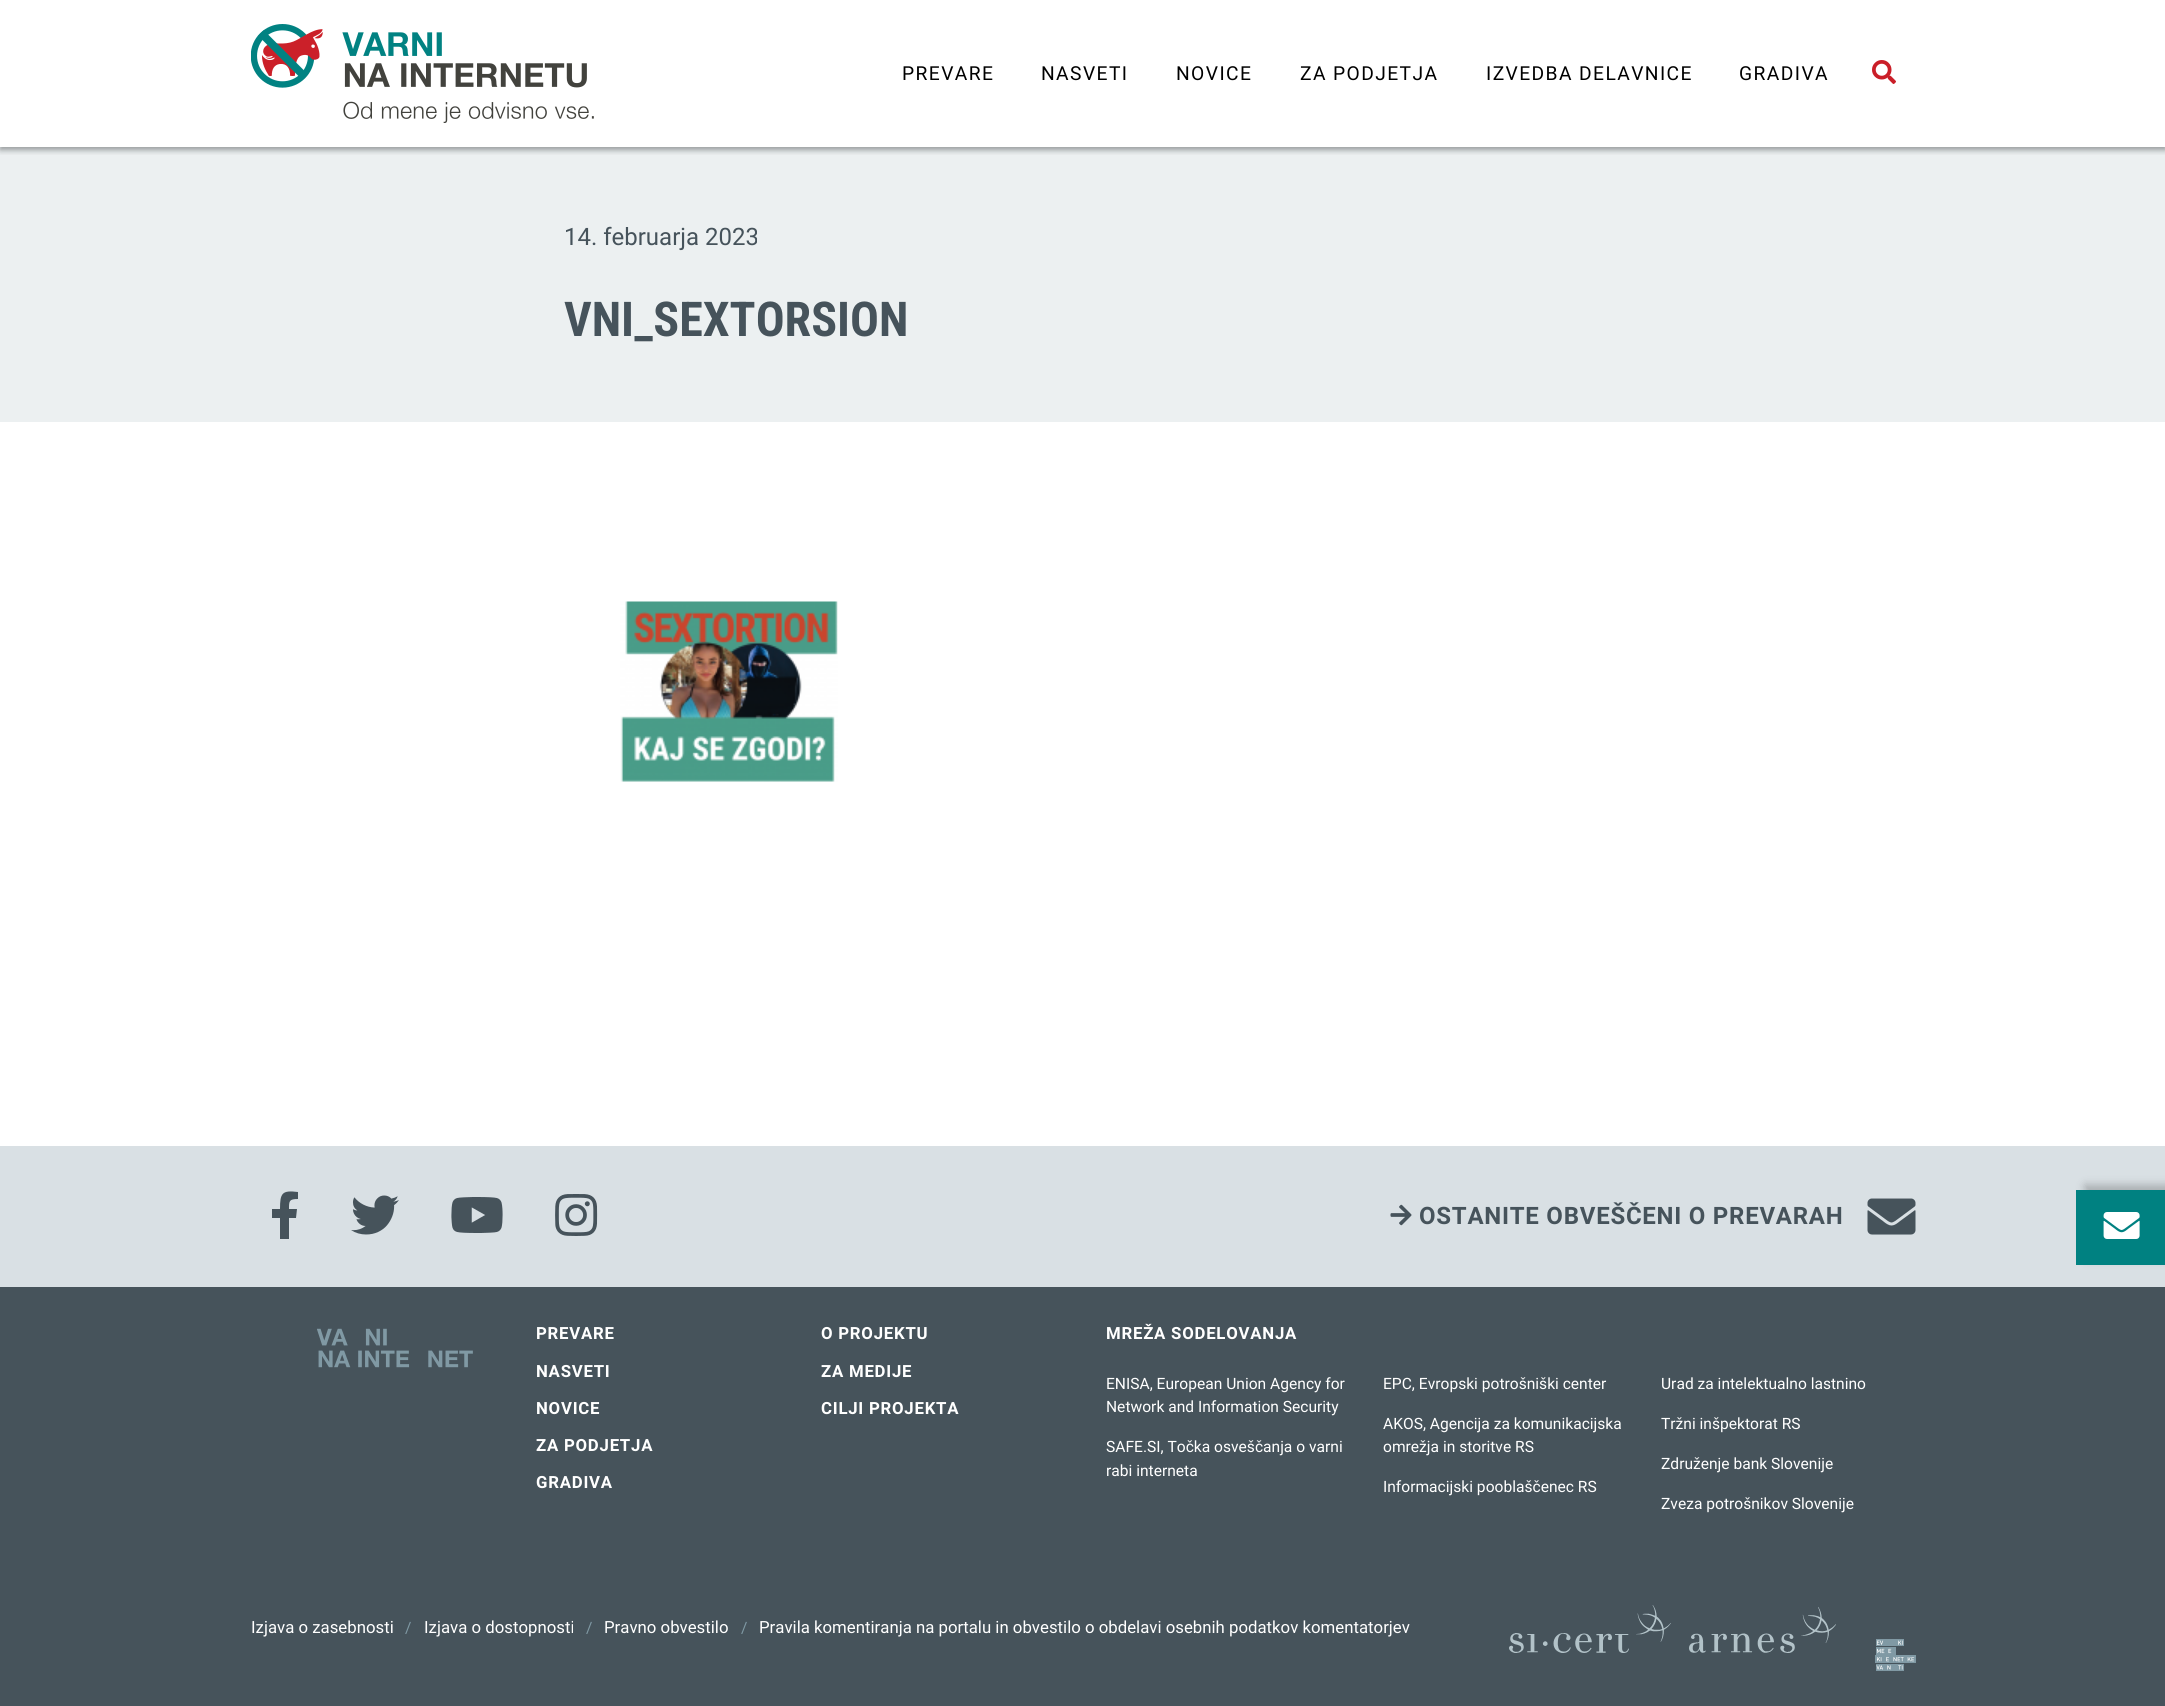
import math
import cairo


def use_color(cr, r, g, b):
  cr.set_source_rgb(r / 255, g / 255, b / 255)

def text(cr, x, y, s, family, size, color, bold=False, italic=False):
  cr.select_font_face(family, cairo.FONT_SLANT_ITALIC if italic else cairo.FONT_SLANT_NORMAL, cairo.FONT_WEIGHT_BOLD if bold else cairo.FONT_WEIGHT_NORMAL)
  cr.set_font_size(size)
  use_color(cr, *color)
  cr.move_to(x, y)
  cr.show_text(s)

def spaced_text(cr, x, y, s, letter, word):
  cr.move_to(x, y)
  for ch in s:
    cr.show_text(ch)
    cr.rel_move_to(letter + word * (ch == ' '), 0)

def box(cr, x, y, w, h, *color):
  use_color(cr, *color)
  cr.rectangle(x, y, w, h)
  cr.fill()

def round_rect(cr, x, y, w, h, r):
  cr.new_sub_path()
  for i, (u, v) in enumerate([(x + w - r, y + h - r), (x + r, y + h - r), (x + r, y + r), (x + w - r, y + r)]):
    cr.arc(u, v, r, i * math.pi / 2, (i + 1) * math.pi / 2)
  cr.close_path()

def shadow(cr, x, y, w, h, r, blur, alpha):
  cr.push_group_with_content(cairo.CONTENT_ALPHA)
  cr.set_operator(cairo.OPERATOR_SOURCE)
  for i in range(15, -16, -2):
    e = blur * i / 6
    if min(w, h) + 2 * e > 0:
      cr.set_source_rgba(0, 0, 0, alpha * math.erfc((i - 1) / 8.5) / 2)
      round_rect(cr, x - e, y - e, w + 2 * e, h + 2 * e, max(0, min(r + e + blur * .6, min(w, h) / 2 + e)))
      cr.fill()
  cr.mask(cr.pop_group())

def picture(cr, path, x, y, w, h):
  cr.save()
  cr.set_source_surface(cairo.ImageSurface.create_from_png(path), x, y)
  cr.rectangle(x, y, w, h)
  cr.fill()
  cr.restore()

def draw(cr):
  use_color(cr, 255, 255, 255)
  cr.paint()
  box(cr, 0, 147, 2165, 275, 236, 240, 241)
  cr.save()
  cr.rectangle(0, 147, 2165, 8)
  cr.clip()
  use_color(cr, 19, 23, 25)
  shadow(cr, 0, 3, 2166, 147, 0, 3, 0.4)
  cr.restore()
  picture(cr, "img_01.png", 251, 24, 343, 99)
  picture(cr, "img_02.png", 1872, 60, 24, 24)
  picture(cr, "img_03.png", 620, 601, 218, 181)
  box(cr, 0, 1146, 2165, 141, 217, 224, 228)
  use_color(cr, 50, 50, 50)
  shadow(cr, 2085, 1185, 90, 75, 0, 4.5, 0.3)
  box(cr, 2076, 1190, 89, 75, 0, 129, 129)
  picture(cr, "img_04.png", 2103, 1212, 37, 27)
  use_color(cr, 70, 83, 91)
  cr.new_path()
  cr.move_to(296, 1218)
  cr.line_to(289, 1218)
  cr.line_to(289, 1239)
  cr.line_to(280, 1239)
  cr.line_to(280, 1218)
  cr.line_to(272, 1218)
  cr.line_to(272, 1209)
  cr.line_to(280, 1209)
  cr.curve_to(280, 1193, 282, 1190, 298, 1192)
  cr.line_to(298, 1199)
  cr.curve_to(289, 1199, 289, 1201, 289, 1209)
  cr.line_to(297, 1209)
  cr.close_path()
  cr.fill()
  picture(cr, "img_05.png", 351, 1195, 48, 40)
  picture(cr, "img_06.png", 451, 1197, 52, 36)
  picture(cr, "img_07.png", 555, 1194, 43, 42)
  picture(cr, "img_08.png", 1390, 1204, 22, 22)
  picture(cr, "img_09.png", 1867, 1198, 49, 37)
  box(cr, 0, 1287, 2165, 419, 70, 83, 91)
  picture(cr, "img_10.png", 317, 1328, 156, 40)
  picture(cr, "img_11.png", 1509, 1605, 162, 48)
  picture(cr, "img_12.png", 1689, 1607, 147, 46)
  picture(cr, "img_13.png", 1875, 1639, 41, 32)
  cr.select_font_face("Roboto")
  cr.set_font_size(19.25)
  use_color(cr, 0, 0, 0)
  spaced_text(cr, 902, 80, "PREVARE", 1.4, 0)
  spaced_text(cr, 1041, 80, "NASVETI", 1.4, 0)
  spaced_text(cr, 1176, 80, "NOVICE", 1.4, 0)
  spaced_text(cr, 1300, 80, "ZA PODJETJA", 1.4, 0)
  spaced_text(cr, 1486, 80, "IZVEDBA DELAVNICE", 1.4, 0)
  spaced_text(cr, 1739, 80, "GRADIVA", 1.4, 0)
  text(cr, 564, 245, "14. februarja 2023", "Roboto", 24, (70, 83, 91))
  text(cr, 564, 336, "VNI_SEXTORSION", "Roboto Condensed", 48, (70, 83, 91), bold=True)
  cr.select_font_face("Roboto", cairo.FONT_SLANT_NORMAL, cairo.FONT_WEIGHT_BOLD)
  cr.set_font_size(24)
  spaced_text(cr, 1419, 1224, "OSTANITE OBVEŠČENI O PREVARAH", 0.75, 0)
  cr.set_font_size(16.8)
  use_color(cr, 255, 255, 255)
  spaced_text(cr, 536, 1339, "PREVARE", 0.75, 0)
  spaced_text(cr, 536, 1377, "NASVETI", 0.75, 0)
  spaced_text(cr, 536, 1414, "NOVICE", 0.75, 0)
  spaced_text(cr, 536, 1451, "ZA PODJETJA", 0.75, 0)
  spaced_text(cr, 536, 1488, "GRADIVA", 0.75, 0)
  spaced_text(cr, 821, 1339, "O PROJEKTU", 0.75, 0)
  spaced_text(cr, 821, 1377, "ZA MEDIJE", 0.75, 0)
  spaced_text(cr, 821, 1414, "CILJI PROJEKTA", 0.75, 0)
  spaced_text(cr, 1106, 1339, "MREŽA SODELOVANJA", 0.75, 0)
  text(cr, 1106, 1389, "ENISA, European Union Agency for", "Roboto", 15.6, (255, 255, 255))
  text(cr, 1106, 1412, "Network and Information Security", "Roboto", 15.6, (255, 255, 255))
  text(cr, 1383, 1389, "EPC, Evropski potrošniški center", "Roboto", 15.6, (255, 255, 255))
  text(cr, 1661, 1389, "Urad za intelektualno lastnino", "Roboto", 15.6, (255, 255, 255))
  text(cr, 1383, 1429, "AKOS, Agencija za komunikacijska", "Roboto", 15.6, (255, 255, 255))
  text(cr, 1383, 1452, "omrežja in storitve RS", "Roboto", 15.6, (255, 255, 255))
  text(cr, 1661, 1429, "Tržni inšpektorat RS", "Roboto", 15.6, (255, 255, 255))
  text(cr, 1106, 1452, "SAFE.SI, Točka osveščanja o varni", "Roboto", 15.6, (255, 255, 255))
  text(cr, 1106, 1476, "rabi interneta", "Roboto", 15.6, (255, 255, 255))
  text(cr, 1661, 1469, "Združenje bank Slovenije", "Roboto", 15.6, (255, 255, 255))
  text(cr, 1383, 1492, "Informacijski pooblaščenec RS", "Roboto", 15.6, (255, 255, 255))
  text(cr, 1661, 1509, "Zveza potrošnikov Slovenije", "Roboto", 15.6, (255, 255, 255))
  text(cr, 251, 1633, "Izjava o zasebnosti", "Roboto", 16.8, (255, 255, 255))
  text(cr, 405, 1633, "/", "Roboto", 15.6, (127, 153, 164))
  text(cr, 424, 1633, "Izjava o dostopnosti", "Roboto", 16.8, (255, 255, 255))
  text(cr, 586, 1633, "/", "Roboto", 15.6, (127, 153, 164))
  text(cr, 604, 1633, "Pravno obvestilo", "Roboto", 16.8, (255, 255, 255))
  text(cr, 741, 1633, "/", "Roboto", 15.6, (127, 153, 164))
  text(cr, 759, 1633, "Pravila komentiranja na portalu in obvestilo o obdelavi osebnih podatkov komentatorjev", "Roboto", 16.8, (255, 255, 255))


surface = cairo.ImageSurface(cairo.FORMAT_RGB24, 2165, 1706)
cr = cairo.Context(surface)
options = cairo.FontOptions()
options.set_hint_metrics(cairo.HINT_METRICS_OFF)
options.set_hint_style(cairo.HINT_STYLE_NONE)
cr.set_font_options(options)
cr.set_miter_limit(4)
draw(cr)
surface.write_to_png("out.png")
